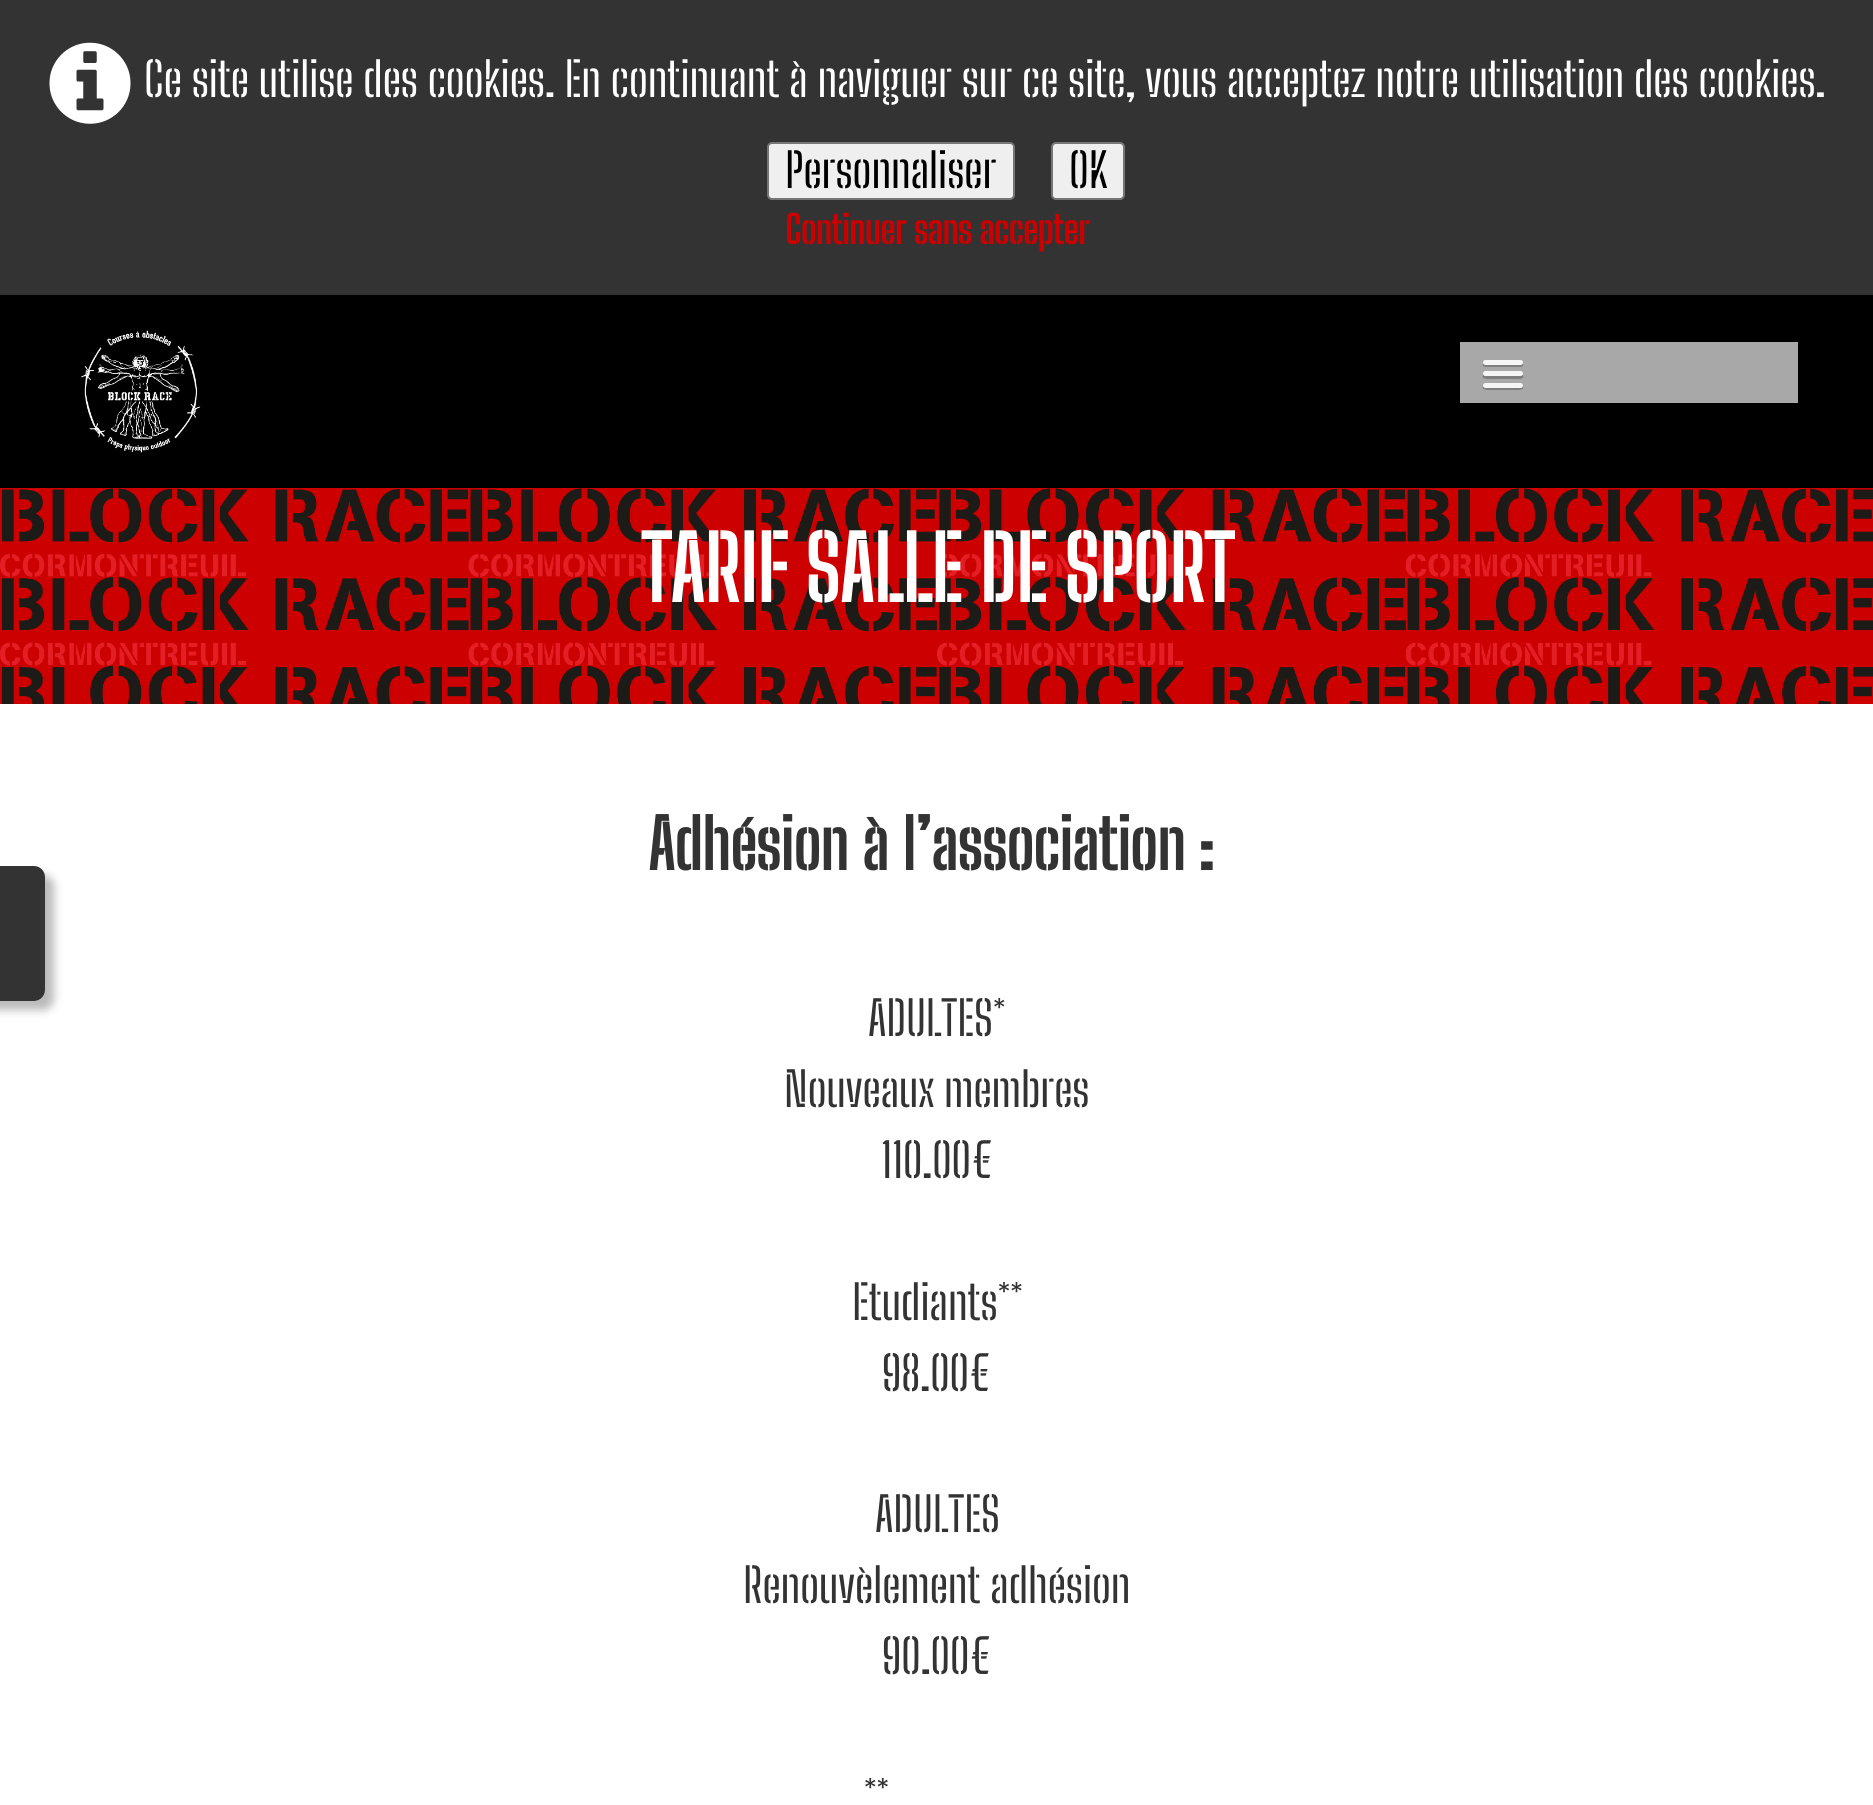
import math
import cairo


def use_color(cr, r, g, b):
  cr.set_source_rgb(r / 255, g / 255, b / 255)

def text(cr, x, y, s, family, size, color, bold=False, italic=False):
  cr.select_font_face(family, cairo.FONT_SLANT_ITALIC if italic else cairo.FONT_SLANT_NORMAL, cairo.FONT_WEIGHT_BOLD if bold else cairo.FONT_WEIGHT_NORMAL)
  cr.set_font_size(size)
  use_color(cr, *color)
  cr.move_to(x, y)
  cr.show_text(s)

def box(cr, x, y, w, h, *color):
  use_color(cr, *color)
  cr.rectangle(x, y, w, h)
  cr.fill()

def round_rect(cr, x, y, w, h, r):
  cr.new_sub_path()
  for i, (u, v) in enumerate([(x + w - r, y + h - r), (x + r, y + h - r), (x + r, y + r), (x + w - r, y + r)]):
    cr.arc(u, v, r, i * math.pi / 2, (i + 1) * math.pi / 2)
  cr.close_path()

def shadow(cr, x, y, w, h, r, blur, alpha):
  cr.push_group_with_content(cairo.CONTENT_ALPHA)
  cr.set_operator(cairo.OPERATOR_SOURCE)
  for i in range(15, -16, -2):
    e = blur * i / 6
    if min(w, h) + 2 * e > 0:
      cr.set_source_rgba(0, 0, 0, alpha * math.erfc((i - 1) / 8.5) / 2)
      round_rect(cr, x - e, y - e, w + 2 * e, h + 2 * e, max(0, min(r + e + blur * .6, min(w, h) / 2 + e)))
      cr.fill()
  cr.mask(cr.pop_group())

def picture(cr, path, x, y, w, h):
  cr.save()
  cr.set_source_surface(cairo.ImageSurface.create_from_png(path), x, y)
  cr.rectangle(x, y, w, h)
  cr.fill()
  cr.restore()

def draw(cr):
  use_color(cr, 255, 255, 255)
  cr.paint()
  cr.save()
  cr.set_fill_rule(cairo.FILL_RULE_EVEN_ODD)
  cr.new_path()
  cr.move_to(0, 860)
  cr.line_to(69, 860)
  cr.line_to(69, 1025)
  cr.line_to(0, 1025)
  cr.close_path()
  cr.move_to(-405, 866)
  cr.line_to(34, 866)
  cr.curve_to(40, 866, 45, 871, 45, 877)
  cr.line_to(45, 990)
  cr.curve_to(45, 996, 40, 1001, 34, 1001)
  cr.line_to(-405, 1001)
  cr.close_path()
  cr.clip()
  use_color(cr, 121, 119, 119)
  shadow(cr, -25, 875, 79, 135, 11, 4.5, 0.51)
  cr.restore()
  cr.set_source_rgba(0, 0, 0, 0.8)
  cr.new_path()
  cr.move_to(-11, 866)
  cr.line_to(34, 866)
  cr.curve_to(40, 866, 45, 871, 45, 877)
  cr.line_to(45, 990)
  cr.curve_to(45, 996, 40, 1001, 34, 1001)
  cr.line_to(-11, 1001)
  cr.close_path()
  cr.fill()
  box(cr, 0, 0, 1873, 295, 51, 51, 51)
  picture(cr, "img_01.png", 49, 42, 82, 82)
  use_color(cr, 239, 239, 239)
  round_rect(cr, 768, 143, 246, 56, 4)
  cr.fill_preserve()
  use_color(cr, 118, 118, 118)
  cr.stroke()
  use_color(cr, 239, 239, 239)
  round_rect(cr, 1052, 143, 72, 56, 4)
  cr.fill_preserve()
  use_color(cr, 118, 118, 118)
  cr.stroke()
  gradient = cairo.RadialGradient(0, 0, 0, 0, 0, 1)
  gradient.set_matrix(cairo.Matrix(1 / 1376, 0, 0, 1 / 137, -1 * 973 / 1376, -1 * 392 / 137))
  gradient.add_color_stop_rgba(0, 0.502, 0.502, 0.502, 1)
  gradient.add_color_stop_rgba(0, 0, 0, 0, 1)
  cr.set_source(gradient)
  cr.rectangle(0, 295, 1873, 193)
  cr.fill()
  picture(cr, "img_02.png", 81, 330, 120, 123)
  box(cr, 1460, 342, 338, 61, 168, 168, 168)
  use_color(cr, 126, 126, 126)
  cr.new_path()
  cr.move_to(1483, 364)
  cr.curve_to(1481, 368, 1490, 367, 1491, 367)
  cr.line_to(1515, 367)
  cr.curve_to(1516, 367, 1525, 368, 1523, 364)
  cr.line_to(1521, 364)
  cr.line_to(1485, 364)
  cr.close_path()
  cr.fill()
  use_color(cr, 245, 245, 245)
  round_rect(cr, 1483, 360, 40, 5, 2.5)
  cr.fill()
  use_color(cr, 126, 126, 126)
  cr.new_path()
  cr.move_to(1483, 375)
  cr.curve_to(1480, 380, 1491, 379, 1491, 379)
  cr.line_to(1515, 379)
  cr.curve_to(1515, 379, 1526, 380, 1523, 375)
  cr.curve_to(1521, 376, 1485, 376, 1483, 375)
  cr.close_path()
  cr.fill()
  use_color(cr, 245, 245, 245)
  round_rect(cr, 1483, 371, 40, 5, 2.5)
  cr.fill()
  use_color(cr, 126, 126, 126)
  cr.new_path()
  cr.move_to(1483, 386)
  cr.curve_to(1481, 391, 1491, 390, 1491, 390)
  cr.line_to(1515, 390)
  cr.curve_to(1515, 390, 1525, 391, 1523, 386)
  cr.curve_to(1521, 388, 1485, 388, 1483, 386)
  cr.close_path()
  cr.fill()
  use_color(cr, 245, 245, 245)
  round_rect(cr, 1483, 383, 40, 5, 2.5)
  cr.fill()
  box(cr, 0, 488, 1873, 216, 204, 0, 0)
  picture(cr, "img_03.png", 0, 488, 1873, 216)
  text(cr, 144, 97, "Ce site utilise des cookies. En continuant à naviguer sur ce site, vous acceptez notre utilisation des cookies.", "Big Shoulders Stencil Text Thin", 47.25, (255, 255, 255))
  text(cr, 785, 188, "Personnaliser", "Big Shoulders Stencil Text Thin", 47.25, (0, 0, 0))
  text(cr, 1069, 188, "OK", "Big Shoulders Stencil Text Thin", 47.25, (0, 0, 0))
  text(cr, 785, 244, "Continuer sans accepter", "Big Shoulders Stencil Text", 37.75, (204, 0, 0), bold=True)
  text(cr, 641, 602, "TARIF SALLE DE SPORT", "Big Shoulders Stencil Text", 86.5, (255, 255, 255), bold=True)
  text(cr, 648, 870, "Adhésion à l’association :", "Big Shoulders Stencil Text", 67.5, (51, 51, 51), bold=True)
  text(cr, 868, 1036, "ADULTES*", "Big Shoulders Stencil Text Thin", 47.25, (51, 51, 51))
  text(cr, 784, 1107, "Nouveaux membres", "Big Shoulders Stencil Text Thin", 47.25, (51, 51, 51))
  text(cr, 881, 1178, "110.00€", "Big Shoulders Stencil Text Thin", 47.25, (51, 51, 51))
  text(cr, 852, 1320, "Etudiants**", "Big Shoulders Stencil Text Thin", 47.25, (51, 51, 51))
  text(cr, 882, 1391, "98.00€", "Big Shoulders Stencil Text Thin", 47.25, (51, 51, 51))
  text(cr, 875, 1532, "ADULTES", "Big Shoulders Stencil Text Thin", 47.25, (51, 51, 51))
  text(cr, 743, 1603, "Renouvèlement adhésion", "Big Shoulders Stencil Text Thin", 47.25, (51, 51, 51))
  text(cr, 882, 1674, "90.00€", "Big Shoulders Stencil Text Thin", 47.25, (51, 51, 51))
  text(cr, 864, 1816, "**", "Big Shoulders Stencil Text Thin", 47.25, (51, 51, 51))


surface = cairo.ImageSurface(cairo.FORMAT_RGB24, 1873, 1805)
cr = cairo.Context(surface)
options = cairo.FontOptions()
options.set_hint_metrics(cairo.HINT_METRICS_OFF)
options.set_hint_style(cairo.HINT_STYLE_NONE)
cr.set_font_options(options)
cr.set_miter_limit(4)
draw(cr)
surface.write_to_png("out.png")
